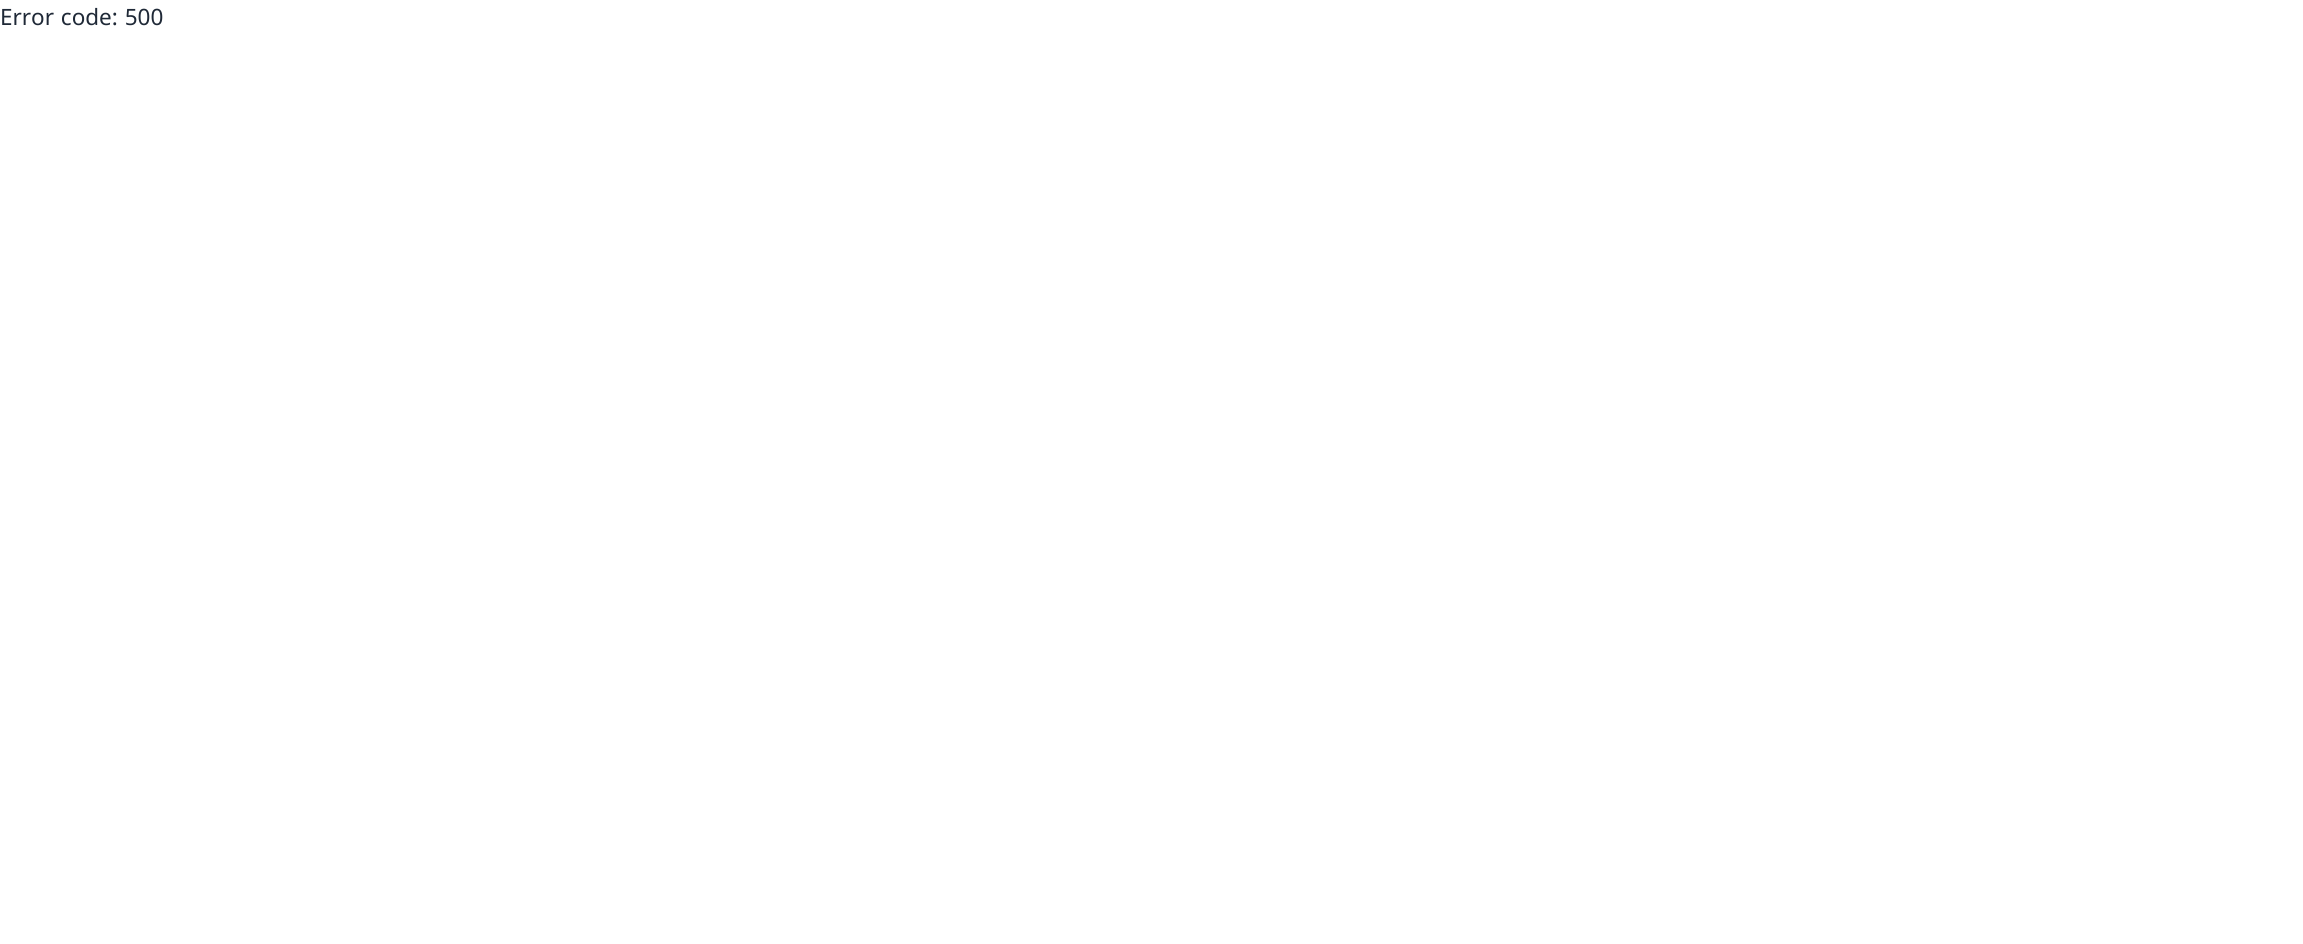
import math
import cairo


def use_color(cr, r, g, b):
  cr.set_source_rgb(r / 255, g / 255, b / 255)

def spaced_text(cr, x, y, s, letter, word):
  cr.move_to(x, y)
  for ch in s:
    cr.show_text(ch)
    cr.rel_move_to(letter + word * (ch == ' '), 0)

def draw(cr):
  use_color(cr, 255, 255, 255)
  cr.paint()
  cr.select_font_face("Noto Sans")
  cr.set_font_size(22.5)
  use_color(cr, 31, 41, 55)
  spaced_text(cr, 0, 25, "Error code: 500", 0, 1)


surface = cairo.ImageSurface(cairo.FORMAT_RGB24, 2303, 944)
cr = cairo.Context(surface)
options = cairo.FontOptions()
options.set_hint_metrics(cairo.HINT_METRICS_OFF)
options.set_hint_style(cairo.HINT_STYLE_NONE)
cr.set_font_options(options)
cr.set_miter_limit(4)
draw(cr)
surface.write_to_png("out.png")
